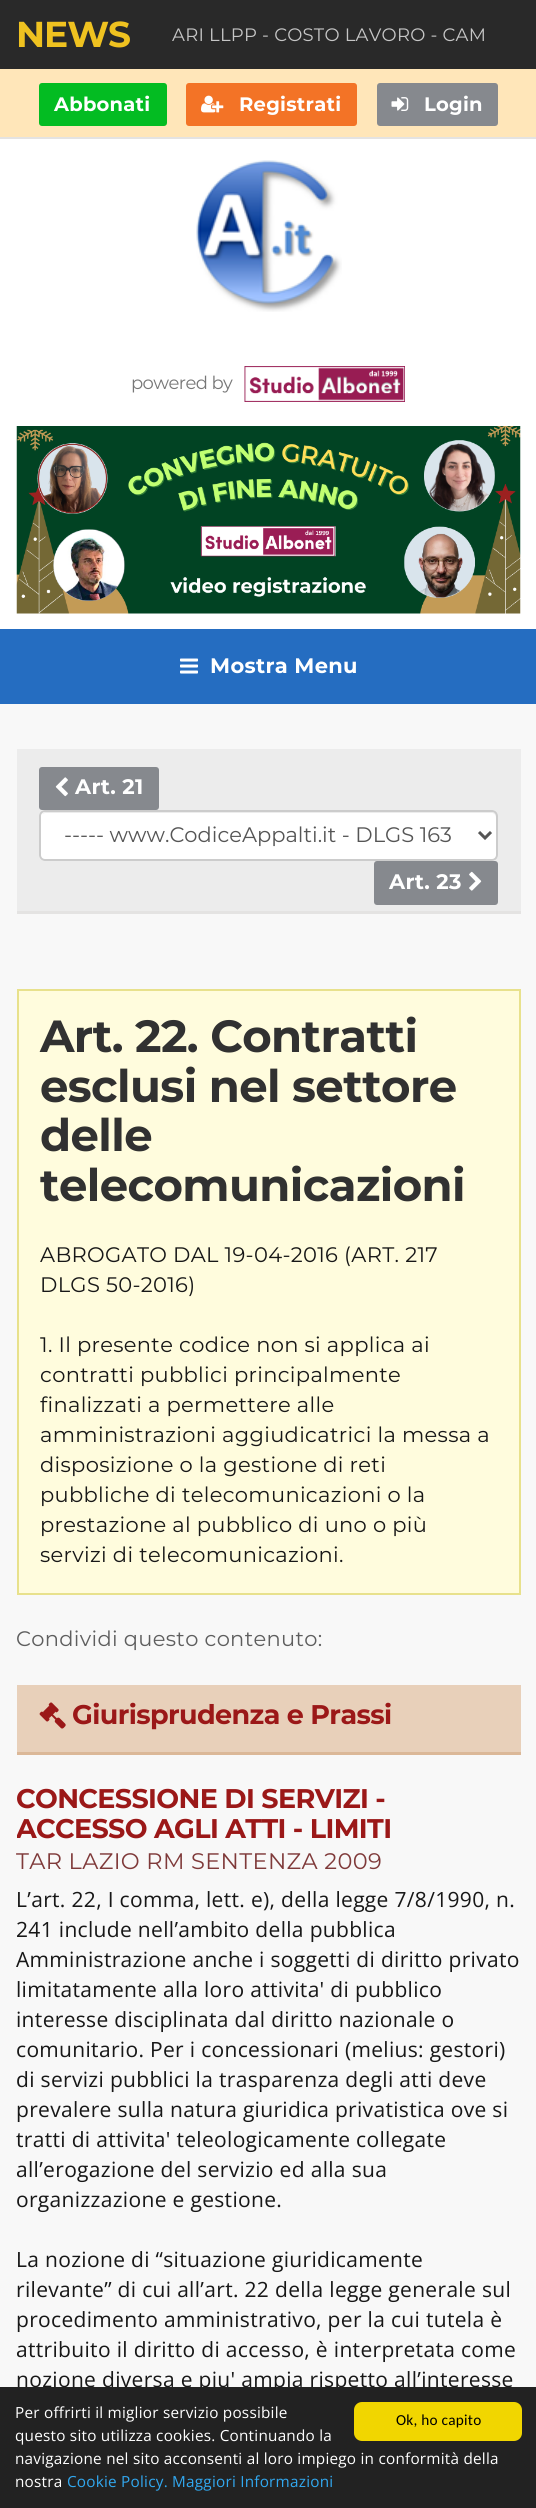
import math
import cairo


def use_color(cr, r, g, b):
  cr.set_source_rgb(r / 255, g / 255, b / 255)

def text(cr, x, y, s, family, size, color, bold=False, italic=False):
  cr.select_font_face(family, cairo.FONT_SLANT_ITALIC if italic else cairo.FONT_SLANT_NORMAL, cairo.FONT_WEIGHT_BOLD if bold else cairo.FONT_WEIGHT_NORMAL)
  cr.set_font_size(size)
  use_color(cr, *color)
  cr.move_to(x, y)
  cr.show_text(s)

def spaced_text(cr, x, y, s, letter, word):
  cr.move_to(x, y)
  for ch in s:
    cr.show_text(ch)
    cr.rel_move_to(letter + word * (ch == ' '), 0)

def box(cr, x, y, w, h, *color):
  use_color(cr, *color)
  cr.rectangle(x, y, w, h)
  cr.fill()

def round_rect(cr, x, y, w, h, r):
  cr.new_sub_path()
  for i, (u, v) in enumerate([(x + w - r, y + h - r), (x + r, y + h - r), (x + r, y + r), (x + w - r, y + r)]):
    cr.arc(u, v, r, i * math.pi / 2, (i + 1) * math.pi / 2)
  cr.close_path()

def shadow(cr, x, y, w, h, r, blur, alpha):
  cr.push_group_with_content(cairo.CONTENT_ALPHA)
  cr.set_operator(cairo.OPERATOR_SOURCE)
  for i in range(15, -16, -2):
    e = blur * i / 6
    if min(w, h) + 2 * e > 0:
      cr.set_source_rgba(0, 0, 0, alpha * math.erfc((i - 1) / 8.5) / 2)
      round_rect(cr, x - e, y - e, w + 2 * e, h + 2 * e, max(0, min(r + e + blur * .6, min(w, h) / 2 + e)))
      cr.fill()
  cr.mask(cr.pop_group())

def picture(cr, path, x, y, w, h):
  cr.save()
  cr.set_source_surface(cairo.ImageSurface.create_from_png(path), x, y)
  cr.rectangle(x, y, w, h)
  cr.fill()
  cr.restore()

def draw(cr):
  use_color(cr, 248, 248, 248)
  cr.paint()
  box(cr, 0, 139, 536, 490, 255, 255, 255)
  box(cr, 0, 0, 536, 69, 41, 41, 41)
  picture(cr, "img_03.png", 196, 160, 146, 152)
  cr.save()
  cr.rectangle(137, 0, 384, 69)
  cr.clip()
  use_color(cr, 41, 41, 41)
  shadow(cr, -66, -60, 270, 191, 0, 45, 1)
  shadow(cr, 468, -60, 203, 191, 0, 45, 1)
  cr.restore()
  box(cr, 0, 69, 536, 68, 255, 230, 185)
  box(cr, 0, 137, 536, 2, 228, 227, 226)
  use_color(cr, 3, 188, 34)
  round_rect(cr, 39, 83, 128, 43, 3)
  cr.fill()
  use_color(cr, 243, 115, 38)
  round_rect(cr, 186, 83, 171, 43, 3)
  cr.fill()
  picture(cr, "img_01.png", 201, 95, 23, 18)
  use_color(cr, 134, 137, 142)
  round_rect(cr, 377, 83, 121, 43, 3)
  cr.fill()
  picture(cr, "img_02.png", 391, 97, 18, 14)
  picture(cr, "img_04.png", 244, 366, 161, 36)
  picture(cr, "img_05.png", 16, 426, 505, 188)
  box(cr, 0, 629, 536, 75, 37, 109, 193)
  picture(cr, "img_06.png", 180, 658, 18, 16)
  box(cr, 17, 749, 504, 162, 236, 236, 236)
  box(cr, 17, 911, 504, 3, 228, 227, 226)
  use_color(cr, 134, 137, 142)
  round_rect(cr, 39, 767, 120, 43, 3)
  cr.fill()
  picture(cr, "img_07.png", 55, 777, 13, 20)
  use_color(cr, 255, 255, 255)
  round_rect(cr, 39, 810, 459, 51, 6)
  cr.fill()
  use_color(cr, 236, 236, 236)
  cr.new_path()
  cr.move_to(45, 813)
  cr.line_to(492, 813)
  cr.curve_to(494, 813, 496, 815, 496, 818)
  cr.line_to(496, 856)
  cr.line_to(495, 859)
  cr.curve_to(496, 858, 497, 856, 497, 855)
  cr.line_to(497, 817)
  cr.curve_to(497, 814, 495, 812, 492, 812)
  cr.line_to(46, 812)
  cr.curve_to(44, 812, 43, 813, 42, 814)
  cr.close_path()
  cr.fill()
  round_rect(cr, 40, 811, 457, 49, 5)
  use_color(cr, 204, 204, 204)
  cr.stroke()
  cr.new_path()
  cr.move_to(479, 832)
  cr.line_to(485, 838)
  cr.line_to(491, 832)
  use_color(cr, 85, 85, 85)
  cr.set_line_width(3)
  cr.stroke()
  use_color(cr, 134, 137, 142)
  round_rect(cr, 374, 861, 124, 44, 3)
  cr.fill()
  picture(cr, "img_08.png", 469, 871, 13, 20)
  use_color(cr, 255, 252, 221)
  cr.rectangle(18, 990, 502, 604)
  cr.fill_preserve()
  use_color(cr, 232, 225, 140)
  cr.set_line_width(2)
  cr.stroke()
  box(cr, 17, 1685, 504, 67, 232, 208, 186)
  box(cr, 17, 1752, 504, 3, 219, 184, 152)
  picture(cr, "img_09.png", 39, 1702, 27, 27)
  cr.select_font_face("Montserrat", cairo.FONT_SLANT_NORMAL, cairo.FONT_WEIGHT_BOLD)
  cr.set_font_size(36)
  use_color(cr, 239, 194, 32)
  spaced_text(cr, 16, 47, "NEWS", -1, 0)
  cr.select_font_face("Montserrat")
  cr.set_font_size(18)
  use_color(cr, 198, 198, 198)
  spaced_text(cr, 172, 41, "ARI LLPP - COSTO LAVORO - CAM", 0.25, 0)
  cr.select_font_face("Montserrat", cairo.FONT_SLANT_NORMAL, cairo.FONT_WEIGHT_BOLD)
  cr.set_font_size(19.5)
  use_color(cr, 255, 255, 255)
  spaced_text(cr, 54, 111, "Abbonati", 0.25, 0)
  spaced_text(cr, 239, 111, "Registrati", 0.25, 0)
  spaced_text(cr, 424, 111, "Login", 0.25, 0)
  cr.select_font_face("Montserrat")
  cr.set_font_size(18)
  use_color(cr, 119, 119, 119)
  spaced_text(cr, 131, 389, "powered by", -0.6, 0)
  cr.select_font_face("Montserrat", cairo.FONT_SLANT_NORMAL, cairo.FONT_WEIGHT_BOLD)
  cr.set_font_size(21)
  use_color(cr, 255, 255, 255)
  spaced_text(cr, 210, 673, "Mostra Menu", 0.32, 0)
  spaced_text(cr, 75, 794, "Art. 21", 0.32, 0)
  text(cr, 64, 842, "----- www.CodiceAppalti.it - DLGS 163", "Montserrat", 21, (85, 85, 85))
  cr.select_font_face("Montserrat", cairo.FONT_SLANT_NORMAL, cairo.FONT_WEIGHT_BOLD)
  use_color(cr, 255, 255, 255)
  spaced_text(cr, 389, 889, "Art. 23", 0.32, 0)
  cr.set_font_size(45)
  use_color(cr, 49, 49, 49)
  spaced_text(cr, 40, 1052, "Art. 22. Contratti", -0.6, 0)
  spaced_text(cr, 40, 1102, "esclusi nel settore", -0.6, 0)
  spaced_text(cr, 40, 1151, "delle", -0.6, 0)
  spaced_text(cr, 40, 1201, "telecomunicazioni", -0.6, 0)
  cr.select_font_face("Montserrat")
  cr.set_font_size(21)
  use_color(cr, 23, 23, 23)
  spaced_text(cr, 40, 1262, "ABROGATO DAL 19-04-2016 (ART. 217", 0.32, 0)
  spaced_text(cr, 40, 1292, "DLGS 50-2016)", 0.32, 0)
  spaced_text(cr, 40, 1352, "1. Il presente codice non si applica ai", 0.32, 0)
  spaced_text(cr, 40, 1382, "contratti pubblici principalmente", 0.32, 0)
  spaced_text(cr, 40, 1412, "finalizzati a permettere alle", 0.32, 0)
  spaced_text(cr, 40, 1442, "amministrazioni aggiudicatrici la messa a", 0.32, 0)
  spaced_text(cr, 40, 1472, "disposizione o la gestione di reti", 0.32, 0)
  spaced_text(cr, 40, 1502, "pubbliche di telecomunicazioni o la", 0.32, 0)
  spaced_text(cr, 40, 1532, "prestazione al pubblico di uno o più", 0.32, 0)
  spaced_text(cr, 40, 1562, "servizi di telecomunicazioni.", 0.32, 0)
  use_color(cr, 94, 94, 94)
  spaced_text(cr, 16, 1646, "Condividi questo contenuto:", 0.32, 0)
  cr.select_font_face("Montserrat", cairo.FONT_SLANT_NORMAL, cairo.FONT_WEIGHT_BOLD)
  cr.set_font_size(27)
  use_color(cr, 155, 24, 24)
  spaced_text(cr, 72, 1724, "Giurisprudenza e Prassi", -0.6, 0)
  spaced_text(cr, 16, 1808, "CONCESSIONE DI SERVIZI -", -0.6, 0)
  cr.save()
  cr.rectangle(17, 704, 504, 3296)
  cr.clip()
  spaced_text(cr, 16, 1838, "ACCESSO AGLI ATTI - LIMITI", -0.6, 0)
  cr.restore()
  cr.select_font_face("Montserrat")
  cr.set_font_size(22.5)
  use_color(cr, 127, 58, 58)
  spaced_text(cr, 16, 1869, "TAR LAZIO RM SENTENZA 2009", 0.35, 0)
  cr.select_font_face("Open Sans")
  cr.set_font_size(21)
  use_color(cr, 23, 23, 23)
  spaced_text(cr, 16, 1907, "L’art. 22, I comma, lett. e), della legge 7/8/1990, n.", 0.32, 0)
  spaced_text(cr, 16, 1937, "241 include nell’ambito della pubblica", 0.32, 0)
  spaced_text(cr, 16, 1967, "Amministrazione anche i soggetti di diritto privato", 0.32, 0)
  spaced_text(cr, 16, 1997, "limitatamente alla loro attivita' di pubblico", 0.32, 0)
  spaced_text(cr, 16, 2027, "interesse disciplinata dal diritto nazionale o", 0.32, 0)
  spaced_text(cr, 16, 2057, "comunitario. Per i concessionari (melius: gestori)", 0.32, 0)
  spaced_text(cr, 16, 2087, "di servizi pubblici la trasparenza degli atti deve", 0.32, 0)
  spaced_text(cr, 16, 2117, "prevalere sulla natura giuridica privatistica ove si", 0.32, 0)
  spaced_text(cr, 16, 2147, "tratti di attivita' teleologicamente collegate", 0.32, 0)
  spaced_text(cr, 16, 2177, "all’erogazione del servizio ed alla sua", 0.32, 0)
  spaced_text(cr, 16, 2207, "organizzazione e gestione.", 0.32, 0)
  spaced_text(cr, 16, 2267, "La nozione di “situazione giuridicamente", 0.32, 0)
  spaced_text(cr, 16, 2297, "rilevante” di cui all’art. 22 della legge generale sul", 0.32, 0)
  spaced_text(cr, 16, 2327, "procedimento amministrativo, per la cui tutela è", 0.32, 0)
  spaced_text(cr, 16, 2357, "attribuito il diritto di accesso, è interpretata come", 0.32, 0)
  spaced_text(cr, 16, 2387, "nozione diversa e piu' ampia rispetto all’interesse", 0.32, 0)
  box(cr, 0, 2387, 536, 121, 34, 34, 34)
  cr.set_font_size(15.3)
  use_color(cr, 255, 255, 255)
  spaced_text(cr, 15, 2418, "Per offrirti il miglior servizio possibile", 0.23, 0)
  spaced_text(cr, 15, 2441, "questo sito utilizza cookies. Continuando la", 0.23, 0)
  spaced_text(cr, 15, 2464, "navigazione nel sito acconsenti al loro impiego in conformità della", 0.23, 0)
  spaced_text(cr, 15, 2487, "nostra", 0.23, 0)
  use_color(cr, 49, 168, 240)
  spaced_text(cr, 67, 2487, "Cookie Policy. Maggiori Informazioni", 0.23, 0)
  use_color(cr, 241, 214, 0)
  round_rect(cr, 354, 2402, 168, 39, 8)
  cr.fill()
  cr.select_font_face("Carlito")
  use_color(cr, 0, 0, 0)
  spaced_text(cr, 396, 2425, "Ok, ho capito", 0.23, 0)


surface = cairo.ImageSurface(cairo.FORMAT_RGB24, 536, 2508)
cr = cairo.Context(surface)
options = cairo.FontOptions()
options.set_hint_metrics(cairo.HINT_METRICS_OFF)
options.set_hint_style(cairo.HINT_STYLE_NONE)
cr.set_font_options(options)
cr.set_miter_limit(4)
draw(cr)
surface.write_to_png("out.png")
